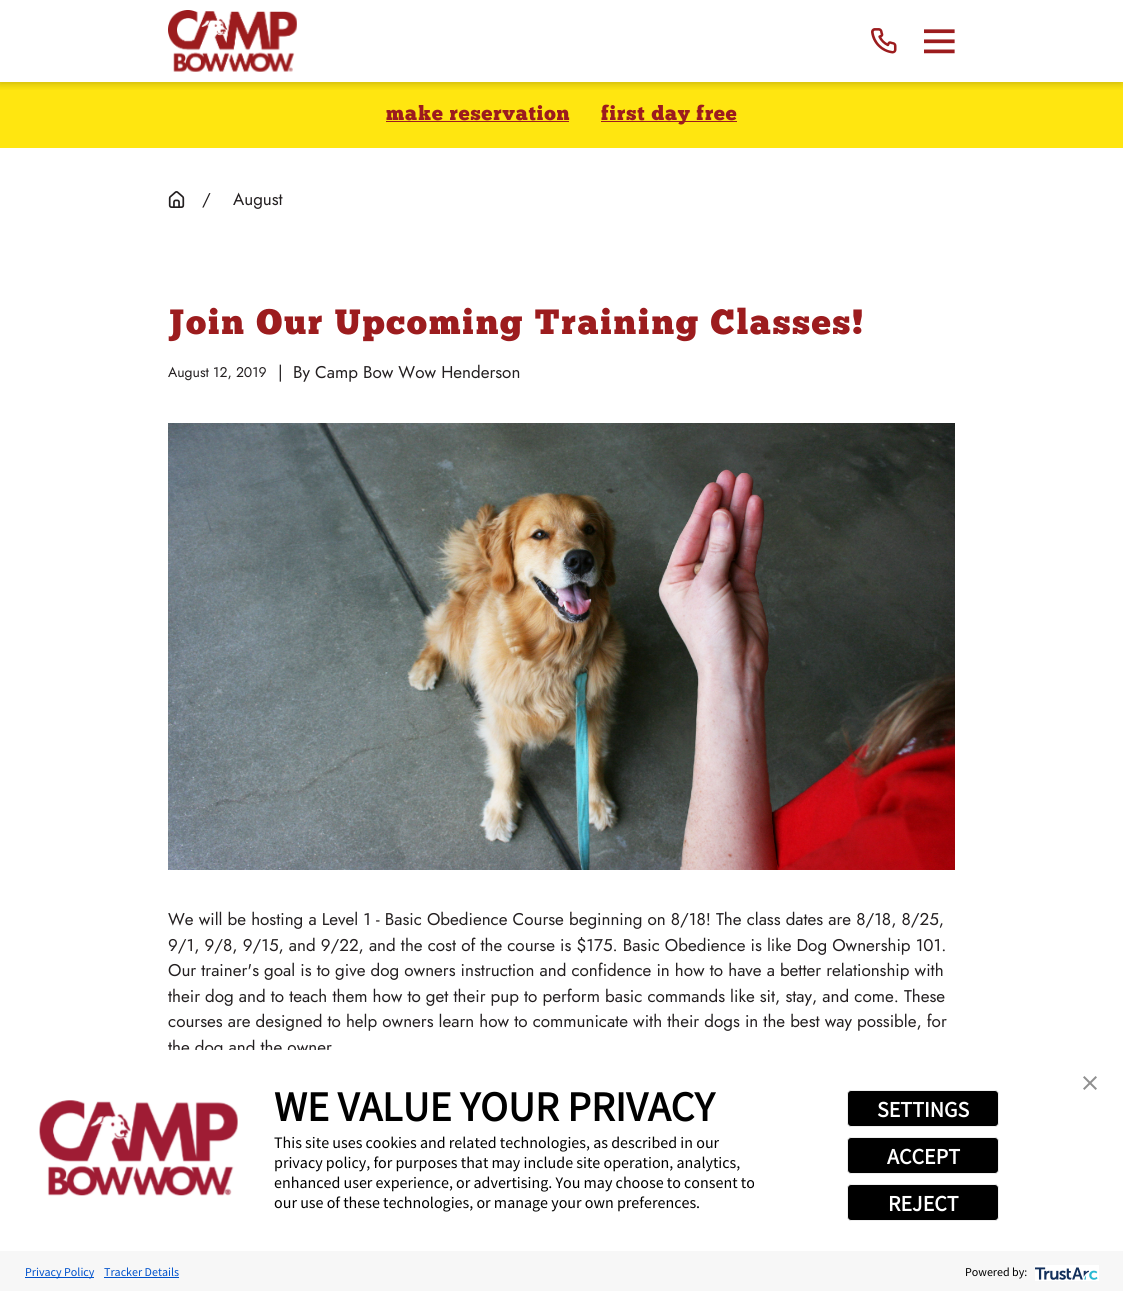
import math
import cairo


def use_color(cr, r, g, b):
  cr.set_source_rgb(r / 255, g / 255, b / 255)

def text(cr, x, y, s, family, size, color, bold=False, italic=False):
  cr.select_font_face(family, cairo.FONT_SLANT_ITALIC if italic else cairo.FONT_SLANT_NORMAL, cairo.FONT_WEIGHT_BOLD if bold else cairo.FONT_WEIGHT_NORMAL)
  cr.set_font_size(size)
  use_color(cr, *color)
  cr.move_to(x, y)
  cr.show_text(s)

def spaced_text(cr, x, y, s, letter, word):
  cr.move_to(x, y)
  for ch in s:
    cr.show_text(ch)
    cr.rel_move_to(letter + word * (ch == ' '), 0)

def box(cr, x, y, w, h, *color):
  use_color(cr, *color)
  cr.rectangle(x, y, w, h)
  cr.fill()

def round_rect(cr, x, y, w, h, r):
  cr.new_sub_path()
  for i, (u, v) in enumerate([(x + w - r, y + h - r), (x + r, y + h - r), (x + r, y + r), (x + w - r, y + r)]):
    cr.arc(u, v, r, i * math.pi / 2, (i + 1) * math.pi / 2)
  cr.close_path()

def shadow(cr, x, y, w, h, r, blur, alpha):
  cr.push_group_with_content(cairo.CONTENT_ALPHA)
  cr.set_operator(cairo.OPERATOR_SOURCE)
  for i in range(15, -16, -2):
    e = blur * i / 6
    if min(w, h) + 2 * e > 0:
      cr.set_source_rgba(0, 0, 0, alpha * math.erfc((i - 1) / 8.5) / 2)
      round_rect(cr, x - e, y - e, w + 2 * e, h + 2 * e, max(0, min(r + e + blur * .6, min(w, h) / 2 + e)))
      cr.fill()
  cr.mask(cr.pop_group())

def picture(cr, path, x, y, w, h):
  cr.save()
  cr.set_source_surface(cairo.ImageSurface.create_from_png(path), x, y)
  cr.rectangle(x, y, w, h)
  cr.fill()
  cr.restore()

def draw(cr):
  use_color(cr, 255, 255, 255)
  cr.paint()
  box(cr, 0, 82, 1123, 66, 255, 230, 16)
  cr.save()
  cr.rectangle(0, 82, 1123, 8)
  cr.clip()
  use_color(cr, 0, 0, 0)
  shadow(cr, -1, 1, 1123, 82, 0, 5, 0.25)
  cr.restore()
  picture(cr, "img_01.png", 168, 10, 129, 62)
  picture(cr, "img_02.png", 871, 28, 26, 26)
  picture(cr, "img_03.png", 924, 29, 31, 25)
  box(cr, 386, 121, 183, 1, 156, 28, 30)
  box(cr, 601, 121, 136, 1, 156, 28, 30)
  picture(cr, "img_04.png", 1083, 1076, 14, 14)
  picture(cr, "img_05.png", 39, 1100, 199, 96)
  use_color(cr, 0, 0, 0)
  round_rect(cr, 847.5, 1090.5, 151, 36, 3.5)
  cr.fill_preserve()
  use_color(cr, 238, 238, 238)
  cr.set_line_width(1)
  cr.stroke()
  use_color(cr, 0, 0, 0)
  round_rect(cr, 847.5, 1137.5, 151, 36, 3.5)
  cr.fill_preserve()
  use_color(cr, 238, 238, 238)
  cr.stroke()
  use_color(cr, 0, 0, 0)
  round_rect(cr, 847.5, 1184.5, 151, 36, 3.5)
  cr.fill_preserve()
  use_color(cr, 238, 238, 238)
  cr.stroke()
  box(cr, 0, 1251, 1123, 40, 247, 247, 247)
  box(cr, 25, 1277, 69, 1, 0, 82, 204)
  box(cr, 104, 1277, 75, 1, 0, 82, 204)
  picture(cr, "img_06.png", 1035, 1265, 64, 16)
  picture(cr, "img_07.png", 168, 191, 17, 17)
  picture(cr, "img_08.png", 168, 423, 787, 447)
  cr.select_font_face("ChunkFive")
  cr.set_font_size(20)
  use_color(cr, 156, 28, 30)
  spaced_text(cr, 386, 120, "make reservation", 0.9, 0)
  spaced_text(cr, 601, 120, "first day free", 0.9, 0)
  text(cr, 274, 1121, "WE VALUE YOUR PRIVACY", "Source Sans Pro", 42, (0, 0, 0), bold=True)
  text(cr, 274, 1148, "This site uses cookies and related technologies, as described in our", "Source Sans Pro", 16, (0, 0, 0))
  text(cr, 274, 1168, "privacy policy, for purposes that may include site operation, analytics,", "Source Sans Pro", 16, (0, 0, 0))
  text(cr, 274, 1188, "enhanced user experience, or advertising. You may choose to consent to", "Source Sans Pro", 16, (0, 0, 0))
  text(cr, 274, 1208, "our use of these technologies, or manage your own preferences.", "Source Sans Pro", 16, (0, 0, 0))
  text(cr, 877, 1117, "SETTINGS", "Source Sans Pro", 22, (255, 255, 255), bold=True)
  text(cr, 887, 1164, "ACCEPT", "Source Sans Pro", 22, (255, 255, 255), bold=True)
  text(cr, 888, 1211, "REJECT", "Source Sans Pro", 22, (255, 255, 255), bold=True)
  text(cr, 25, 1276, "Privacy Policy", "Source Sans Pro", 12, (0, 82, 204))
  text(cr, 104, 1276, "Tracker Details", "Source Sans Pro", 12, (0, 82, 204))
  text(cr, 965, 1276, "Powered by:", "Source Sans Pro", 12, (0, 0, 0))
  text(cr, 202, 205, "/", "Jost", 17, (35, 31, 32))
  text(cr, 233, 205, "August", "Jost", 17, (35, 31, 32))
  cr.select_font_face("ChunkFive")
  cr.set_font_size(35.1)
  use_color(cr, 156, 28, 30)
  spaced_text(cr, 168, 334, "Join Our Upcoming Training Classes!", 1.75, 0)
  text(cr, 168, 377, "August 12, 2019", "Jost", 14, (35, 31, 32))
  text(cr, 278, 378, "|", "Jost", 17, (35, 31, 32))
  text(cr, 293, 378, "By Camp Bow Wow Henderson", "Jost", 17, (35, 31, 32))
  text(cr, 168, 925, "We will be hosting a Level 1 - Basic Obedience Course beginning on 8/18! The class dates are 8/18, 8/25,", "Jost", 17, (35, 31, 32))
  text(cr, 168, 951, "9/1, 9/8, 9/15, and 9/22, and the cost of the course is $175. Basic Obedience is like Dog Ownership 101.", "Jost", 17, (35, 31, 32))
  text(cr, 168, 976, "Our trainer's goal is to give dog owners instruction and confidence in how to have a better relationship with", "Jost", 17, (35, 31, 32))
  text(cr, 168, 1002, "their dog and to teach them how to get their pup to perform basic commands like sit, stay, and come. These", "Jost", 17, (35, 31, 32))
  text(cr, 168, 1027, "courses are designed to help owners learn how to communicate with their dogs in the best way possible, for", "Jost", 17, (35, 31, 32))
  text(cr, 168, 1053, "the dog and the owner", "Jost", 17, (35, 31, 32))
  box(cr, 169, 1050, 161, 7, 255, 255, 255)


surface = cairo.ImageSurface(cairo.FORMAT_RGB24, 1123, 1291)
cr = cairo.Context(surface)
options = cairo.FontOptions()
options.set_hint_metrics(cairo.HINT_METRICS_OFF)
options.set_hint_style(cairo.HINT_STYLE_NONE)
cr.set_font_options(options)
cr.set_miter_limit(4)
draw(cr)
surface.write_to_png("out.png")
